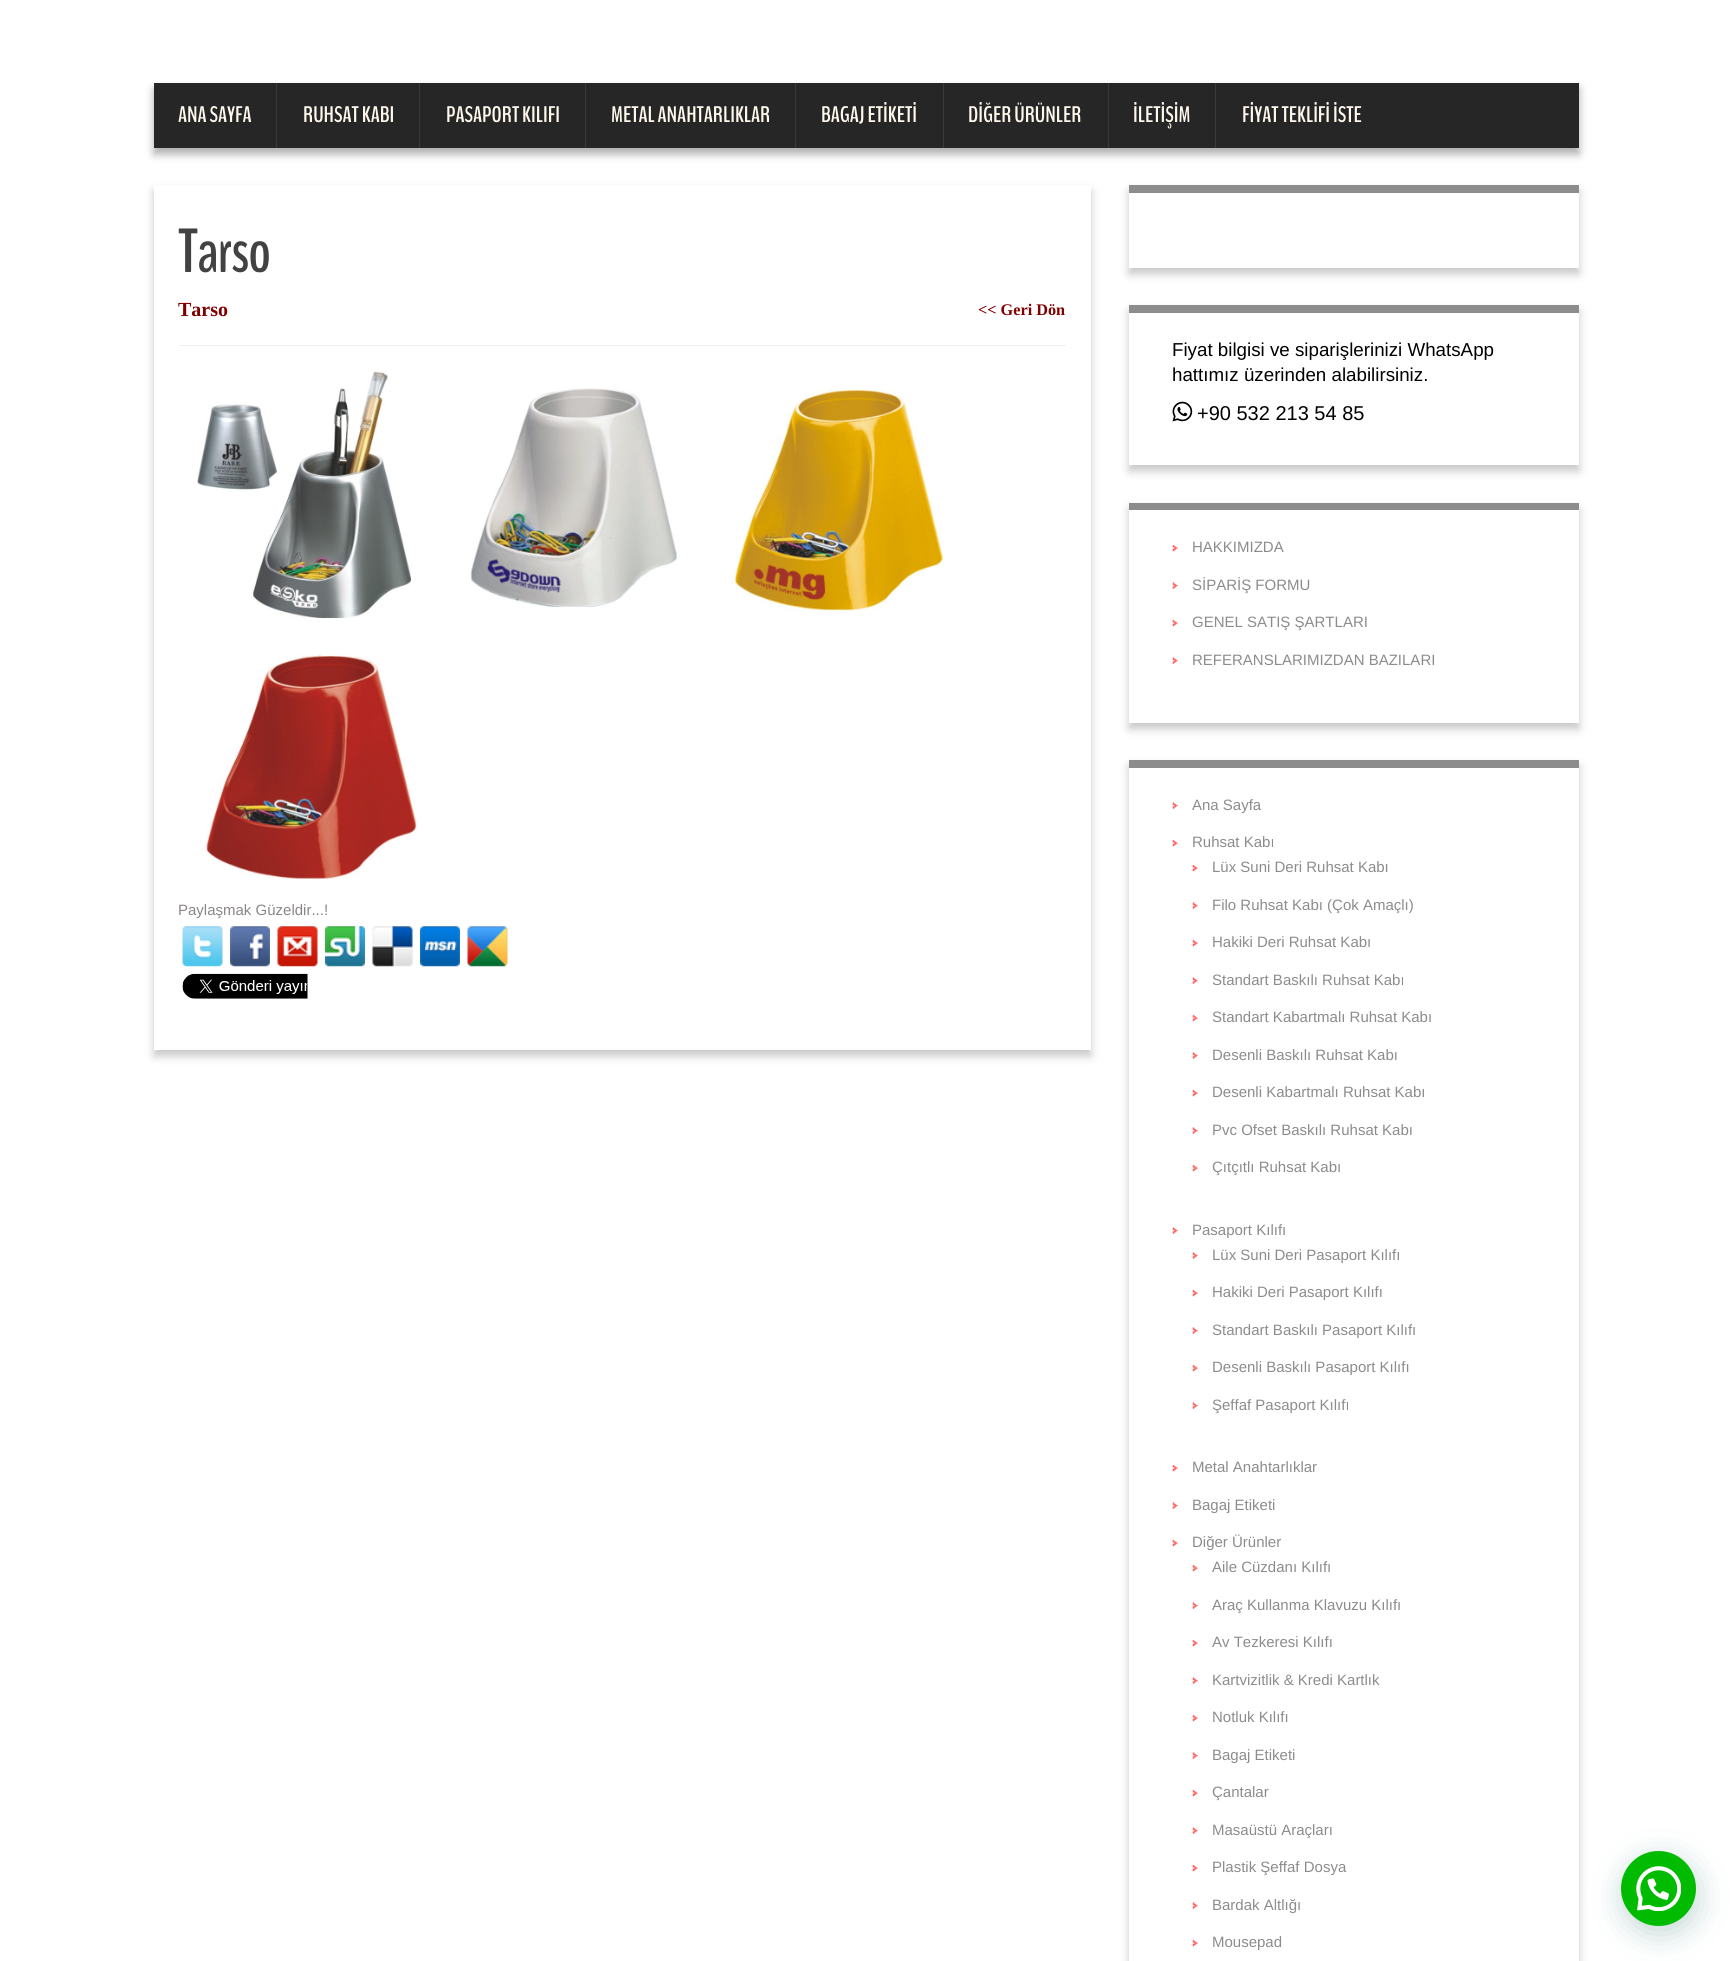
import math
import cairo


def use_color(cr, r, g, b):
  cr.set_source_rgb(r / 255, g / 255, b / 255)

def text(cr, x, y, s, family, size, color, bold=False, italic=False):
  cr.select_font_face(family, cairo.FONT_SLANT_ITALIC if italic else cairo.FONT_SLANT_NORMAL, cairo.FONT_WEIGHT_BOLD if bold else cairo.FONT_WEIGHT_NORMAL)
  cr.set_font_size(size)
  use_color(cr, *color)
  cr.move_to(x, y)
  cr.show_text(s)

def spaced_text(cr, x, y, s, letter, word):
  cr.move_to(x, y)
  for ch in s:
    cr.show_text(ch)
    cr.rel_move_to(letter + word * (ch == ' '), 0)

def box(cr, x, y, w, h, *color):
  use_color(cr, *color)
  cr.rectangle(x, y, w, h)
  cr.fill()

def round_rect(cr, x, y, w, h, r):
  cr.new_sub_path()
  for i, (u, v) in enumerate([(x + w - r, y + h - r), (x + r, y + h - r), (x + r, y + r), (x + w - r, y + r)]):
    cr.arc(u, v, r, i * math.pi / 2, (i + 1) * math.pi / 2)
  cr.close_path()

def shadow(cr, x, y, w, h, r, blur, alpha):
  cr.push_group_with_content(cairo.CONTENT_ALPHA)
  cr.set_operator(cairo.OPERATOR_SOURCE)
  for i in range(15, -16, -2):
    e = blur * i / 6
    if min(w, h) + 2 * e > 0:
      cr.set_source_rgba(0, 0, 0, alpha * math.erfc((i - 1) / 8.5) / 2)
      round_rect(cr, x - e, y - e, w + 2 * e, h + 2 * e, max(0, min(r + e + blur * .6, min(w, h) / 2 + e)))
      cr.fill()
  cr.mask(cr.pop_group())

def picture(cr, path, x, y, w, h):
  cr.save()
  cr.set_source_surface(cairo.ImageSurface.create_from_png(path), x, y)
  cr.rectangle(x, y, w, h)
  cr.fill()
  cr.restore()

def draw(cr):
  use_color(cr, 255, 255, 255)
  cr.paint()
  use_color(cr, 0, 0, 0)
  shadow(cr, 154, 89, 1425, 65, 0, 4.5, 0.33)
  box(cr, 154, 83, 1425, 65, 38, 38, 38)
  box(cr, 276, 83, 1, 65, 58, 58, 58)
  box(cr, 419, 83, 1, 65, 58, 58, 58)
  box(cr, 585, 83, 1, 65, 58, 58, 58)
  box(cr, 795, 83, 1, 65, 58, 58, 58)
  box(cr, 943, 83, 1, 65, 58, 58, 58)
  box(cr, 1108, 83, 1, 65, 58, 58, 58)
  box(cr, 1215, 83, 1, 65, 58, 58, 58)
  cr.save()
  cr.set_fill_rule(cairo.FILL_RULE_EVEN_ODD)
  cr.new_path()
  cr.move_to(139, 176)
  cr.line_to(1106, 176)
  cr.line_to(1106, 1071)
  cr.line_to(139, 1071)
  cr.close_path()
  cr.move_to(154, 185)
  cr.line_to(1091, 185)
  cr.line_to(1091, 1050)
  cr.line_to(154, 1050)
  cr.close_path()
  cr.clip()
  use_color(cr, 0, 0, 0)
  shadow(cr, 154, 191, 937, 865, 0, 4.5, 0.22)
  cr.restore()
  box(cr, 179, 345, 887, 1, 238, 238, 238)
  picture(cr, "img_01.png", 197, 371, 214, 248)
  picture(cr, "img_02.png", 470, 388, 209, 220)
  picture(cr, "img_03.png", 732, 389, 212, 222)
  picture(cr, "img_04.png", 206, 654, 214, 227)
  picture(cr, "img_05.png", 182, 926, 41, 41)
  picture(cr, "img_06.png", 230, 926, 40, 41)
  picture(cr, "img_07.png", 277, 926, 41, 41)
  picture(cr, "img_08.png", 325, 926, 40, 41)
  picture(cr, "img_09.png", 372, 926, 41, 41)
  picture(cr, "img_10.png", 420, 926, 40, 41)
  picture(cr, "img_11.png", 467, 926, 41, 41)
  picture(cr, "img_12.png", 182, 973, 126, 26)
  use_color(cr, 0, 0, 0)
  shadow(cr, 1129, 191, 450, 83, 0, 4.5, 0.22)
  box(cr, 1129, 193, 450, 75, 255, 255, 255)
  box(cr, 1129, 185, 450, 8, 140, 140, 140)
  use_color(cr, 0, 0, 0)
  shadow(cr, 1129, 311, 450, 160, 0, 4.5, 0.22)
  box(cr, 1129, 313, 450, 152, 255, 255, 255)
  box(cr, 1129, 305, 450, 8, 140, 140, 140)
  picture(cr, "img_13.png", 1172, 401, 21, 21)
  use_color(cr, 0, 0, 0)
  shadow(cr, 1129, 509, 450, 220, 0, 4.5, 0.22)
  box(cr, 1129, 510, 450, 213, 255, 255, 255)
  box(cr, 1129, 503, 450, 7, 140, 140, 140)
  picture(cr, "img_14.png", 1172, 544, 6, 8)
  picture(cr, "img_15.png", 1172, 582, 6, 7)
  picture(cr, "img_14.png", 1172, 619, 6, 8)
  picture(cr, "img_15.png", 1172, 657, 6, 7)
  use_color(cr, 0, 0, 0)
  shadow(cr, 1129, 766, 450, 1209, 0, 4.5, 0.22)
  box(cr, 1129, 768, 450, 1193, 255, 255, 255)
  box(cr, 1129, 760, 450, 8, 140, 140, 140)
  picture(cr, "img_15.png", 1172, 802, 6, 7)
  picture(cr, "img_14.png", 1172, 839, 6, 8)
  picture(cr, "img_14.png", 1192, 864, 6, 8)
  picture(cr, "img_15.png", 1192, 902, 6, 7)
  picture(cr, "img_14.png", 1192, 939, 6, 8)
  picture(cr, "img_15.png", 1192, 977, 6, 7)
  picture(cr, "img_14.png", 1192, 1014, 6, 8)
  picture(cr, "img_15.png", 1192, 1052, 6, 7)
  picture(cr, "img_14.png", 1192, 1089, 6, 8)
  picture(cr, "img_15.png", 1192, 1127, 6, 7)
  picture(cr, "img_14.png", 1192, 1164, 6, 8)
  picture(cr, "img_15.png", 1172, 1227, 6, 7)
  picture(cr, "img_15.png", 1192, 1252, 6, 7)
  picture(cr, "img_14.png", 1192, 1289, 6, 8)
  picture(cr, "img_15.png", 1192, 1327, 6, 7)
  picture(cr, "img_14.png", 1192, 1364, 6, 8)
  picture(cr, "img_15.png", 1192, 1402, 6, 7)
  picture(cr, "img_14.png", 1172, 1464, 6, 8)
  picture(cr, "img_15.png", 1172, 1502, 6, 7)
  picture(cr, "img_14.png", 1172, 1539, 6, 8)
  picture(cr, "img_16.png", 1192, 1564, 6, 8)
  picture(cr, "img_15.png", 1192, 1602, 6, 7)
  picture(cr, "img_14.png", 1192, 1639, 6, 8)
  picture(cr, "img_15.png", 1192, 1677, 6, 7)
  picture(cr, "img_14.png", 1192, 1714, 6, 8)
  picture(cr, "img_15.png", 1192, 1752, 6, 7)
  picture(cr, "img_14.png", 1192, 1789, 6, 8)
  picture(cr, "img_15.png", 1192, 1827, 6, 7)
  picture(cr, "img_16.png", 1192, 1864, 6, 8)
  picture(cr, "img_15.png", 1192, 1902, 6, 7)
  picture(cr, "img_14.png", 1192, 1939, 6, 8)
  use_color(cr, 7, 94, 84)
  shadow(cr, 1623, 1859, 75, 75, 37.5, 15, 0.24)
  use_color(cr, 0, 187, 0)
  cr.arc(1658.5, 1888.5, 37.5, 0, 2 * math.pi)
  cr.fill()
  picture(cr, "img_17.png", 1636, 1866, 45, 45)
  text(cr, 178, 122, "ANA SAYFA", "BenchNine", 22.5, (255, 248, 237), bold=True)
  text(cr, 303, 122, "RUHSAT KABI", "BenchNine", 22.5, (255, 248, 237), bold=True)
  text(cr, 446, 122, "PASAPORT KILIFI", "BenchNine", 22.5, (255, 248, 237), bold=True)
  text(cr, 611, 122, "METAL ANAHTARLIKLAR", "BenchNine", 22.5, (255, 248, 237), bold=True)
  text(cr, 821, 122, "BAGAJ ETİKETİ", "BenchNine", 22.5, (255, 248, 237), bold=True)
  text(cr, 968, 122, "DİĞER ÜRÜNLER", "BenchNine", 22.5, (255, 248, 237), bold=True)
  text(cr, 1133, 122, "İLETİŞİM", "BenchNine", 22.5, (255, 248, 237), bold=True)
  text(cr, 1242, 122, "FİYAT TEKLİFİ İSTE", "BenchNine", 22.5, (255, 248, 237), bold=True)
  cr.set_font_size(62)
  use_color(cr, 67, 66, 66)
  spaced_text(cr, 178, 272, "Tarso", -1.25, 0)
  text(cr, 178, 316, "Tarso", "Liberation Serif", 20, (128, 0, 0), bold=True)
  text(cr, 978, 315, "<< Geri Dön", "Liberation Serif", 16.25, (128, 0, 0), bold=True)
  text(cr, 178, 915, "Paylaşmak Güzeldir...!", "Liberation Sans", 15, (139, 134, 134))
  text(cr, 1172, 356, "Fiyat bilgisi ve siparişlerinizi WhatsApp", "Liberation Sans", 18.75, (0, 0, 0))
  text(cr, 1172, 381, "hattımız üzerinden alabilirsiniz.", "Liberation Sans", 18.75, (0, 0, 0))
  text(cr, 1197, 420, "+90 532 213 54 85", "Liberation Sans", 20, (0, 0, 0))
  text(cr, 1192, 552, "HAKKIMIZDA", "Liberation Sans", 15, (140, 140, 140))
  text(cr, 1192, 590, "SİPARİŞ FORMU", "Liberation Sans", 15, (140, 140, 140))
  text(cr, 1192, 627, "GENEL SATIŞ ŞARTLARI", "Liberation Sans", 15, (140, 140, 140))
  text(cr, 1192, 665, "REFERANSLARIMIZDAN BAZILARI", "Liberation Sans", 15, (140, 140, 140))
  text(cr, 1192, 810, "Ana Sayfa", "Liberation Sans", 15, (140, 140, 140))
  text(cr, 1192, 847, "Ruhsat Kabı", "Liberation Sans", 15, (140, 140, 140))
  text(cr, 1212, 872, "Lüx Suni Deri Ruhsat Kabı", "Liberation Sans", 15, (140, 140, 140))
  text(cr, 1212, 910, "Filo Ruhsat Kabı (Çok Amaçlı)", "Liberation Sans", 15, (140, 140, 140))
  text(cr, 1212, 947, "Hakiki Deri Ruhsat Kabı", "Liberation Sans", 15, (140, 140, 140))
  text(cr, 1212, 985, "Standart Baskılı Ruhsat Kabı", "Liberation Sans", 15, (140, 140, 140))
  text(cr, 1212, 1022, "Standart Kabartmalı Ruhsat Kabı", "Liberation Sans", 15, (140, 140, 140))
  text(cr, 1212, 1060, "Desenli Baskılı Ruhsat Kabı", "Liberation Sans", 15, (140, 140, 140))
  text(cr, 1212, 1097, "Desenli Kabartmalı Ruhsat Kabı", "Liberation Sans", 15, (140, 140, 140))
  text(cr, 1212, 1135, "Pvc Ofset Baskılı Ruhsat Kabı", "Liberation Sans", 15, (140, 140, 140))
  text(cr, 1212, 1172, "Çıtçıtlı Ruhsat Kabı", "Liberation Sans", 15, (140, 140, 140))
  text(cr, 1192, 1235, "Pasaport Kılıfı", "Liberation Sans", 15, (140, 140, 140))
  text(cr, 1212, 1260, "Lüx Suni Deri Pasaport Kılıfı", "Liberation Sans", 15, (140, 140, 140))
  text(cr, 1212, 1297, "Hakiki Deri Pasaport Kılıfı", "Liberation Sans", 15, (140, 140, 140))
  text(cr, 1212, 1335, "Standart Baskılı Pasaport Kılıfı", "Liberation Sans", 15, (140, 140, 140))
  text(cr, 1212, 1372, "Desenli Baskılı Pasaport Kılıfı", "Liberation Sans", 15, (140, 140, 140))
  text(cr, 1212, 1410, "Şeffaf Pasaport Kılıfı", "Liberation Sans", 15, (140, 140, 140))
  text(cr, 1192, 1472, "Metal Anahtarlıklar", "Liberation Sans", 15, (140, 140, 140))
  text(cr, 1192, 1510, "Bagaj Etiketi", "Liberation Sans", 15, (140, 140, 140))
  text(cr, 1192, 1547, "Diğer Ürünler", "Liberation Sans", 15, (140, 140, 140))
  text(cr, 1212, 1572, "Aile Cüzdanı Kılıfı", "Liberation Sans", 15, (140, 140, 140))
  text(cr, 1212, 1610, "Araç Kullanma Klavuzu Kılıfı", "Liberation Sans", 15, (140, 140, 140))
  text(cr, 1212, 1647, "Av Tezkeresi Kılıfı", "Liberation Sans", 15, (140, 140, 140))
  text(cr, 1212, 1685, "Kartvizitlik & Kredi Kartlık", "Liberation Sans", 15, (140, 140, 140))
  text(cr, 1212, 1722, "Notluk Kılıfı", "Liberation Sans", 15, (140, 140, 140))
  text(cr, 1212, 1760, "Bagaj Etiketi", "Liberation Sans", 15, (140, 140, 140))
  text(cr, 1212, 1797, "Çantalar", "Liberation Sans", 15, (140, 140, 140))
  text(cr, 1212, 1835, "Masaüstü Araçları", "Liberation Sans", 15, (140, 140, 140))
  text(cr, 1212, 1872, "Plastik Şeffaf Dosya", "Liberation Sans", 15, (140, 140, 140))
  text(cr, 1212, 1910, "Bardak Altlığı", "Liberation Sans", 15, (140, 140, 140))
  text(cr, 1212, 1947, "Mousepad", "Liberation Sans", 15, (140, 140, 140))


surface = cairo.ImageSurface(cairo.FORMAT_RGB24, 1731, 1961)
cr = cairo.Context(surface)
options = cairo.FontOptions()
options.set_hint_metrics(cairo.HINT_METRICS_OFF)
options.set_hint_style(cairo.HINT_STYLE_NONE)
cr.set_font_options(options)
cr.set_miter_limit(4)
draw(cr)
surface.write_to_png("out.png")
